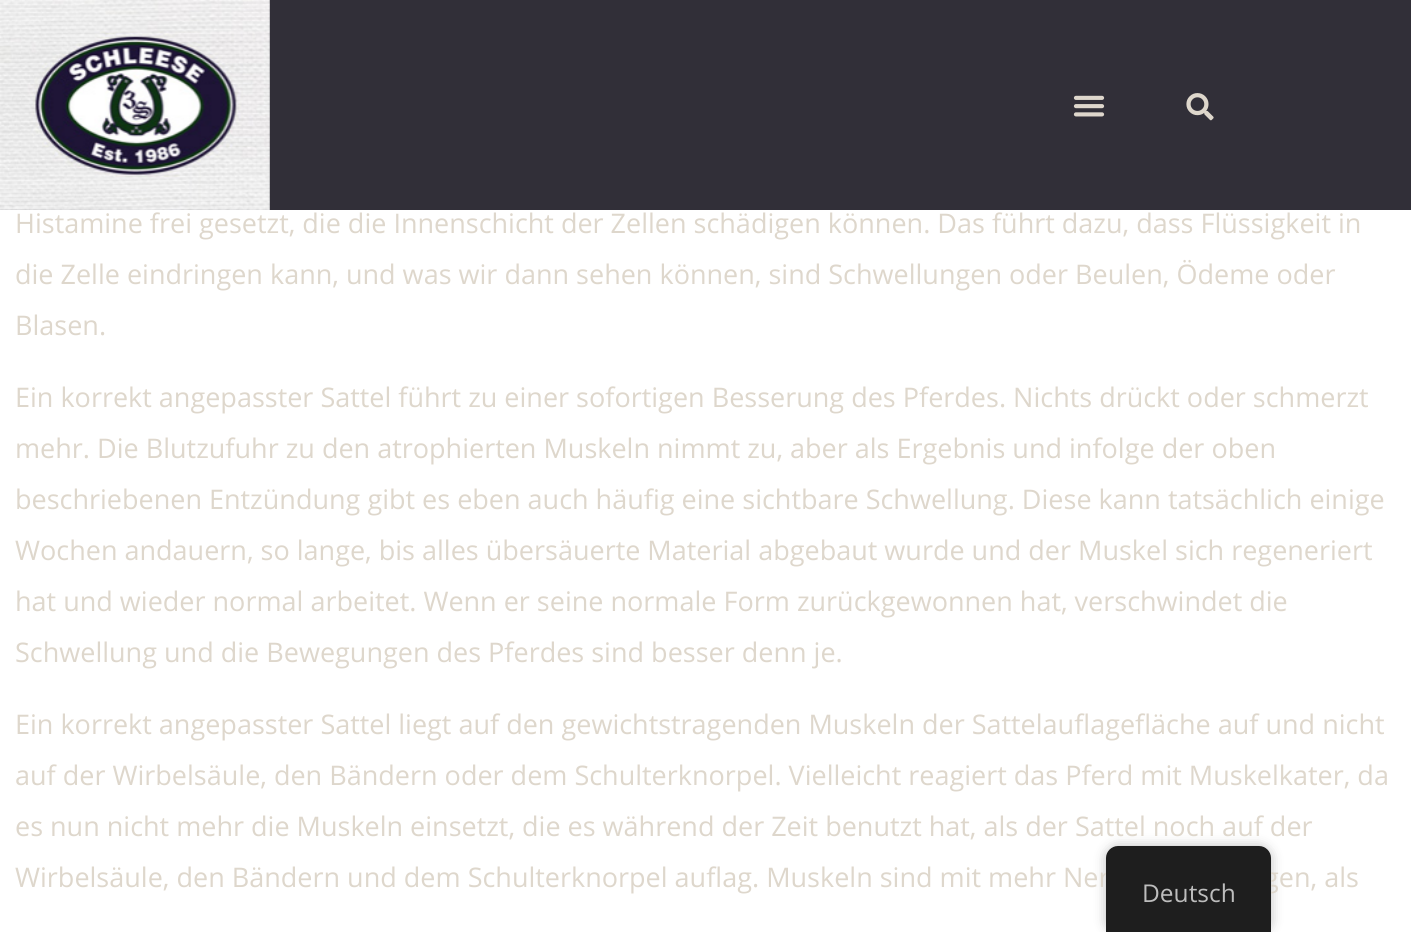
import math
import cairo


def use_color(cr, r, g, b):
  cr.set_source_rgb(r / 255, g / 255, b / 255)

def text(cr, x, y, s, family, size, color, bold=False, italic=False):
  cr.select_font_face(family, cairo.FONT_SLANT_ITALIC if italic else cairo.FONT_SLANT_NORMAL, cairo.FONT_WEIGHT_BOLD if bold else cairo.FONT_WEIGHT_NORMAL)
  cr.set_font_size(size)
  use_color(cr, *color)
  cr.move_to(x, y)
  cr.show_text(s)

def box(cr, x, y, w, h, *color):
  use_color(cr, *color)
  cr.rectangle(x, y, w, h)
  cr.fill()

def round_rect(cr, x, y, w, h, r):
  cr.new_sub_path()
  for i, (u, v) in enumerate([(x + w - r, y + h - r), (x + r, y + h - r), (x + r, y + r), (x + w - r, y + r)]):
    cr.arc(u, v, r, i * math.pi / 2, (i + 1) * math.pi / 2)
  cr.close_path()

def shadow(cr, x, y, w, h, r, blur, alpha):
  cr.push_group_with_content(cairo.CONTENT_ALPHA)
  cr.set_operator(cairo.OPERATOR_SOURCE)
  for i in range(15, -16, -2):
    e = blur * i / 6
    if min(w, h) + 2 * e > 0:
      cr.set_source_rgba(0, 0, 0, alpha * math.erfc((i - 1) / 8.5) / 2)
      round_rect(cr, x - e, y - e, w + 2 * e, h + 2 * e, max(0, min(r + e + blur * .6, min(w, h) / 2 + e)))
      cr.fill()
  cr.mask(cr.pop_group())

def picture(cr, path, x, y, w, h):
  cr.save()
  cr.set_source_surface(cairo.ImageSurface.create_from_png(path), x, y)
  cr.rectangle(x, y, w, h)
  cr.fill()
  cr.restore()

def draw(cr):
  use_color(cr, 255, 255, 255)
  cr.paint()
  box(cr, 0, 0, 1411, 210, 49, 47, 56)
  picture(cr, "img_01.png", 0, 0, 270, 210)
  picture(cr, "img_02.png", 1073, 95, 32, 22)
  picture(cr, "img_03.png", 1186, 93, 28, 28)
  use_color(cr, 0, 0, 0)
  shadow(cr, 1106, 846, 165, 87, 12, 6, 0.25)
  text(cr, 15, 233, "Histamine frei gesetzt, die die Innenschicht der Zellen schädigen können. Das führt dazu, dass Flüssigkeit in", "Open Sans", 27, (222, 215, 204))
  text(cr, 15, 284, "die Zelle eindringen kann, und was wir dann sehen können, sind Schwellungen oder Beulen, Ödeme oder", "Open Sans", 27, (222, 215, 204))
  text(cr, 15, 335, "Blasen.", "Open Sans", 27, (222, 215, 204))
  text(cr, 15, 407, "Ein korrekt angepasster Sattel führt zu einer sofortigen Besserung des Pferdes. Nichts drückt oder schmerzt", "Open Sans", 27, (222, 215, 204))
  text(cr, 15, 458, "mehr. Die Blutzufuhr zu den atrophierten Muskeln nimmt zu, aber als Ergebnis und infolge der oben", "Open Sans", 27, (222, 215, 204))
  text(cr, 15, 509, "beschriebenen Entzündung gibt es eben auch häufig eine sichtbare Schwellung. Diese kann tatsächlich einige", "Open Sans", 27, (222, 215, 204))
  text(cr, 15, 560, "Wochen andauern, so lange, bis alles übersäuerte Material abgebaut wurde und der Muskel sich regeneriert", "Open Sans", 27, (222, 215, 204))
  text(cr, 15, 611, "hat und wieder normal arbeitet. Wenn er seine normale Form zurückgewonnen hat, verschwindet die", "Open Sans", 27, (222, 215, 204))
  text(cr, 15, 662, "Schwellung und die Bewegungen des Pferdes sind besser denn je.", "Open Sans", 27, (222, 215, 204))
  text(cr, 15, 734, "Ein korrekt angepasster Sattel liegt auf den gewichtstragenden Muskeln der Sattelauflagefläche auf und nicht", "Open Sans", 27, (222, 215, 204))
  text(cr, 15, 785, "auf der Wirbelsäule, den Bändern oder dem Schulterknorpel. Vielleicht reagiert das Pferd mit Muskelkater, da", "Open Sans", 27, (222, 215, 204))
  text(cr, 15, 836, "es nun nicht mehr die Muskeln einsetzt, die es während der Zeit benutzt hat, als der Sattel noch auf der", "Open Sans", 27, (222, 215, 204))
  text(cr, 15, 887, "Wirbelsäule, den Bändern und dem Schulterknorpel auflag. Muskeln sind mit mehr Ner", "Open Sans", 27, (222, 215, 204))
  text(cr, 1264, 887, "gen, als", "Open Sans", 27, (222, 215, 204))
  use_color(cr, 30, 30, 30)
  cr.new_path()
  cr.move_to(1118, 846)
  cr.line_to(1259, 846)
  cr.curve_to(1265.5, 846, 1271, 851.5, 1271, 858)
  cr.line_to(1271, 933)
  cr.line_to(1106, 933)
  cr.line_to(1106, 858)
  cr.curve_to(1106, 851.5, 1111.5, 846, 1118, 846)
  cr.close_path()
  cr.fill()
  text(cr, 1142, 902, "Deutsch", "Open Sans", 24.5, (189, 189, 189))


surface = cairo.ImageSurface(cairo.FORMAT_RGB24, 1411, 932)
cr = cairo.Context(surface)
options = cairo.FontOptions()
options.set_hint_metrics(cairo.HINT_METRICS_OFF)
options.set_hint_style(cairo.HINT_STYLE_NONE)
cr.set_font_options(options)
cr.set_miter_limit(4)
draw(cr)
surface.write_to_png("out.png")
